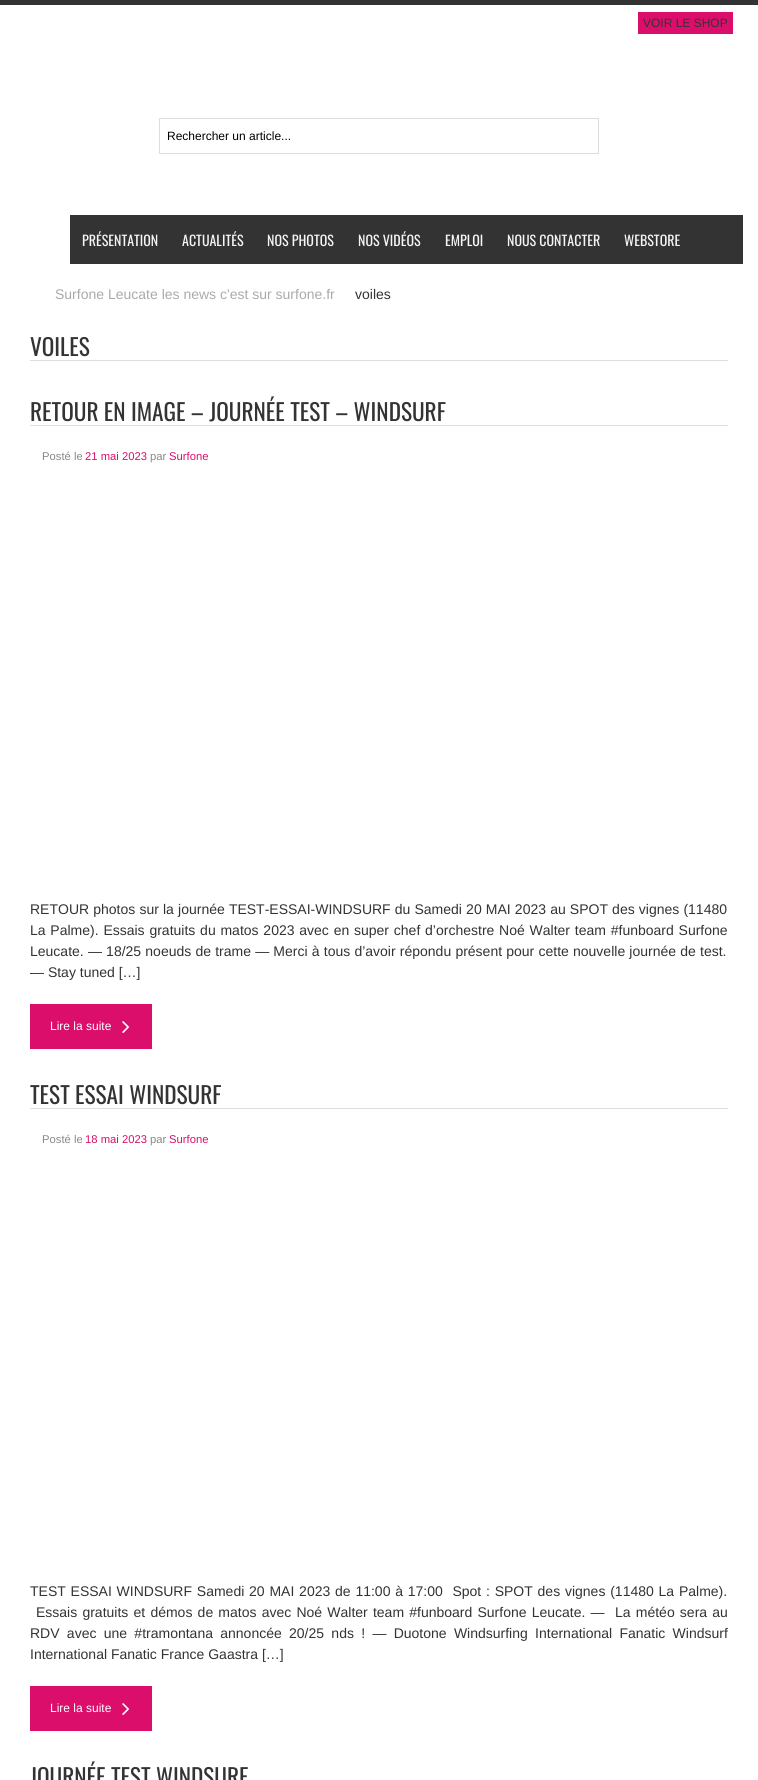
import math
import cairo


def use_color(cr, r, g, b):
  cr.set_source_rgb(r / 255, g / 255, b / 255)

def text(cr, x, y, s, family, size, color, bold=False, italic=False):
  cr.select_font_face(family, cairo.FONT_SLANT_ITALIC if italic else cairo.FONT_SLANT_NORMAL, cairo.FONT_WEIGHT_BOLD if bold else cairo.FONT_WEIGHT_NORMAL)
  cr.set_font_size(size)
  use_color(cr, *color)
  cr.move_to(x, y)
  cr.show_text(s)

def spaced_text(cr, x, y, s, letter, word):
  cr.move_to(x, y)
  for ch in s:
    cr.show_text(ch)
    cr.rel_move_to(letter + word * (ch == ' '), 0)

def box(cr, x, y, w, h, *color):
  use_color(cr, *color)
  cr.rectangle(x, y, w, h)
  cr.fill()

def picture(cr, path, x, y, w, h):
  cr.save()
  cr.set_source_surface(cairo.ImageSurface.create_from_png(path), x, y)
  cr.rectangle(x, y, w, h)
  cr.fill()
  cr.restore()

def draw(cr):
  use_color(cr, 255, 255, 255)
  cr.paint()
  box(cr, 0, 0, 758, 5, 51, 51, 51)
  box(cr, 638, 12, 95, 22, 219, 14, 107)
  cr.rectangle(159.5, 118.5, 439, 35)
  use_color(cr, 221, 221, 221)
  cr.set_line_width(1)
  cr.stroke()
  box(cr, 70, 215, 673, 49, 51, 51, 51)
  box(cr, 30, 360, 698, 1, 222, 222, 222)
  box(cr, 30, 425, 698, 1, 222, 222, 222)
  box(cr, 30, 1004, 122, 45, 219, 14, 107)
  picture(cr, "img_01.png", 122, 1021, 8, 12)
  box(cr, 30, 1108, 698, 1, 222, 222, 222)
  box(cr, 30, 1686, 122, 45, 219, 14, 107)
  picture(cr, "img_01.png", 122, 1703, 8, 12)
  text(cr, 643, 27, "VOIR LE SHOP", "Liberation Sans", 12, (51, 51, 51))
  text(cr, 167, 140, "Rechercher un article...", "Liberation Sans", 12, (0, 0, 0))
  text(cr, 82, 246, "PRÉSENTATION", "Oswald", 14, (245, 245, 245))
  text(cr, 182, 246, "ACTUALITÉS", "Oswald", 14, (245, 245, 245))
  text(cr, 267, 246, "NOS PHOTOS", "Oswald", 14, (245, 245, 245))
  text(cr, 358, 246, "NOS VIDÉOS", "Oswald", 14, (245, 245, 245))
  text(cr, 445, 246, "EMPLOI", "Oswald", 14, (245, 245, 245))
  text(cr, 507, 246, "NOUS CONTACTER", "Oswald", 14, (245, 245, 245))
  text(cr, 624, 246, "WEBSTORE", "Oswald", 14, (245, 245, 245))
  text(cr, 55, 299, "Surfone Leucate les news c'est sur surfone.fr", "Liberation Sans", 14, (170, 170, 170))
  text(cr, 355, 299, "voiles", "Liberation Sans", 14, (51, 51, 51))
  text(cr, 30, 356, "VOILES", "Oswald", 23.3, (51, 51, 51))
  text(cr, 30, 421, "RETOUR EN IMAGE – JOURNÉE TEST – WINDSURF", "Oswald", 23.3, (51, 51, 51))
  text(cr, 42, 460, "Posté le", "Liberation Sans", 11.25, (136, 136, 136))
  text(cr, 85, 460, "21 mai 2023", "Liberation Sans", 11.25, (219, 14, 107))
  text(cr, 150, 460, "par", "Liberation Sans", 11.25, (136, 136, 136))
  text(cr, 169, 460, "Surfone", "Liberation Sans", 11.25, (219, 14, 107))
  cr.set_font_size(14)
  use_color(cr, 51, 51, 51)
  spaced_text(cr, 30, 914, "RETOUR photos sur la journée TEST-ESSAI-WINDSURF du Samedi 20 MAI 2023 au SPOT des vignes (11480", 0, 0.25)
  spaced_text(cr, 30, 935, "La Palme). Essais gratuits du matos 2023 avec en super chef d’orchestre Noé Walter team #funboard Surfone", 0, 0.9)
  spaced_text(cr, 30, 956, "Leucate. — 18/25 noeuds de trame — Merci à tous d’avoir répondu présent pour cette nouvelle journée de test.", 0, 0.3)
  text(cr, 30, 977, "— Stay tuned […]", "Liberation Sans", 14, (51, 51, 51))
  text(cr, 50, 1030, "Lire la suite", "Liberation Sans", 12, (255, 255, 255))
  text(cr, 30, 1104, "TEST ESSAI WINDSURF", "Oswald", 23.3, (51, 51, 51))
  text(cr, 42, 1143, "Posté le", "Liberation Sans", 11.25, (136, 136, 136))
  text(cr, 85, 1143, "18 mai 2023", "Liberation Sans", 11.25, (219, 14, 107))
  text(cr, 150, 1143, "par", "Liberation Sans", 11.25, (136, 136, 136))
  text(cr, 169, 1143, "Surfone", "Liberation Sans", 11.25, (219, 14, 107))
  cr.set_font_size(14)
  use_color(cr, 51, 51, 51)
  spaced_text(cr, 30, 1596, "TEST ESSAI WINDSURF Samedi 20 MAI 2023 de 11:00 à 17:00  Spot : SPOT des vignes (11480 La Palme).", 0, 0.9)
  spaced_text(cr, 36, 1617, "Essais gratuits et démos de matos avec Noé Walter team #funboard Surfone Leucate. —  La météo sera au", 0, 1.3)
  spaced_text(cr, 30, 1638, "RDV avec une #tramontana annoncée 20/25 nds ! — Duotone Windsurfing International Fanatic Windsurf", 0, 3.4)
  text(cr, 30, 1659, "International Fanatic France Gaastra […]", "Liberation Sans", 14, (51, 51, 51))
  text(cr, 50, 1712, "Lire la suite", "Liberation Sans", 12, (255, 255, 255))
  text(cr, 30, 1786, "JOURNÉE TEST WINDSURF", "Oswald", 23.3, (51, 51, 51))


surface = cairo.ImageSurface(cairo.FORMAT_RGB24, 758, 1780)
cr = cairo.Context(surface)
options = cairo.FontOptions()
options.set_hint_metrics(cairo.HINT_METRICS_OFF)
options.set_hint_style(cairo.HINT_STYLE_NONE)
cr.set_font_options(options)
cr.set_miter_limit(4)
draw(cr)
surface.write_to_png("out.png")
